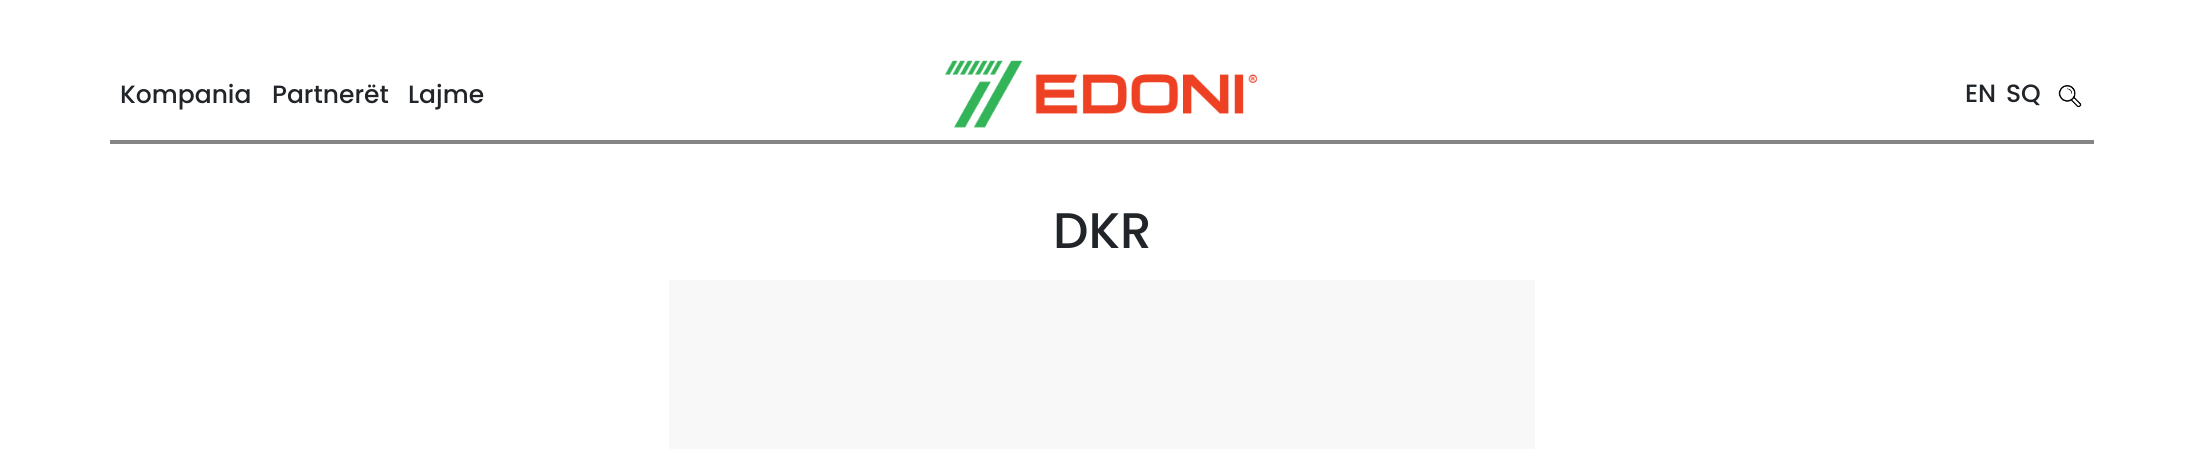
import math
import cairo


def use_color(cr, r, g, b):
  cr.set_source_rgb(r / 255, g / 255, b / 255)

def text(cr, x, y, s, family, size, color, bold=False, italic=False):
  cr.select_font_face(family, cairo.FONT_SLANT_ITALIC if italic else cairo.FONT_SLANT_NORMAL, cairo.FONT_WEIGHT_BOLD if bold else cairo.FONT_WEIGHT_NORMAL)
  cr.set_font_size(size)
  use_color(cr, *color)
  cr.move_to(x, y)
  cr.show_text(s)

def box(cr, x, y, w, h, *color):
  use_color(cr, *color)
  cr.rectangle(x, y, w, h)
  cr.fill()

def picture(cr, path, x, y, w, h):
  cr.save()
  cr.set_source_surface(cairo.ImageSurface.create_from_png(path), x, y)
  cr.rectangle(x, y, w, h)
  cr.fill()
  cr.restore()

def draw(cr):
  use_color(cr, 255, 255, 255)
  cr.paint()
  box(cr, 110, 140, 1984, 4, 133, 133, 133)
  picture(cr, "img_01.png", 945, 60, 313, 68)
  picture(cr, "img_02.png", 2058, 85, 24, 23)
  box(cr, 669, 280, 866, 169, 248, 248, 248)
  text(cr, 120, 103, "Kompania", "Poppins Medium", 25, (33, 37, 41))
  text(cr, 272, 103, "Partnerët", "Poppins Medium", 25, (33, 37, 41))
  text(cr, 408, 103, "Lajme", "Poppins Medium", 25, (33, 37, 41))
  text(cr, 1965, 102, "EN", "Poppins Medium", 25, (33, 37, 41))
  text(cr, 2006, 102, "SQ", "Poppins Medium", 25, (33, 37, 41))
  text(cr, 1053, 248, "DKR", "Poppins Medium", 50, (33, 37, 41))


surface = cairo.ImageSurface(cairo.FORMAT_RGB24, 2203, 449)
cr = cairo.Context(surface)
options = cairo.FontOptions()
options.set_hint_metrics(cairo.HINT_METRICS_OFF)
options.set_hint_style(cairo.HINT_STYLE_NONE)
cr.set_font_options(options)
cr.set_miter_limit(4)
draw(cr)
surface.write_to_png("out.png")
